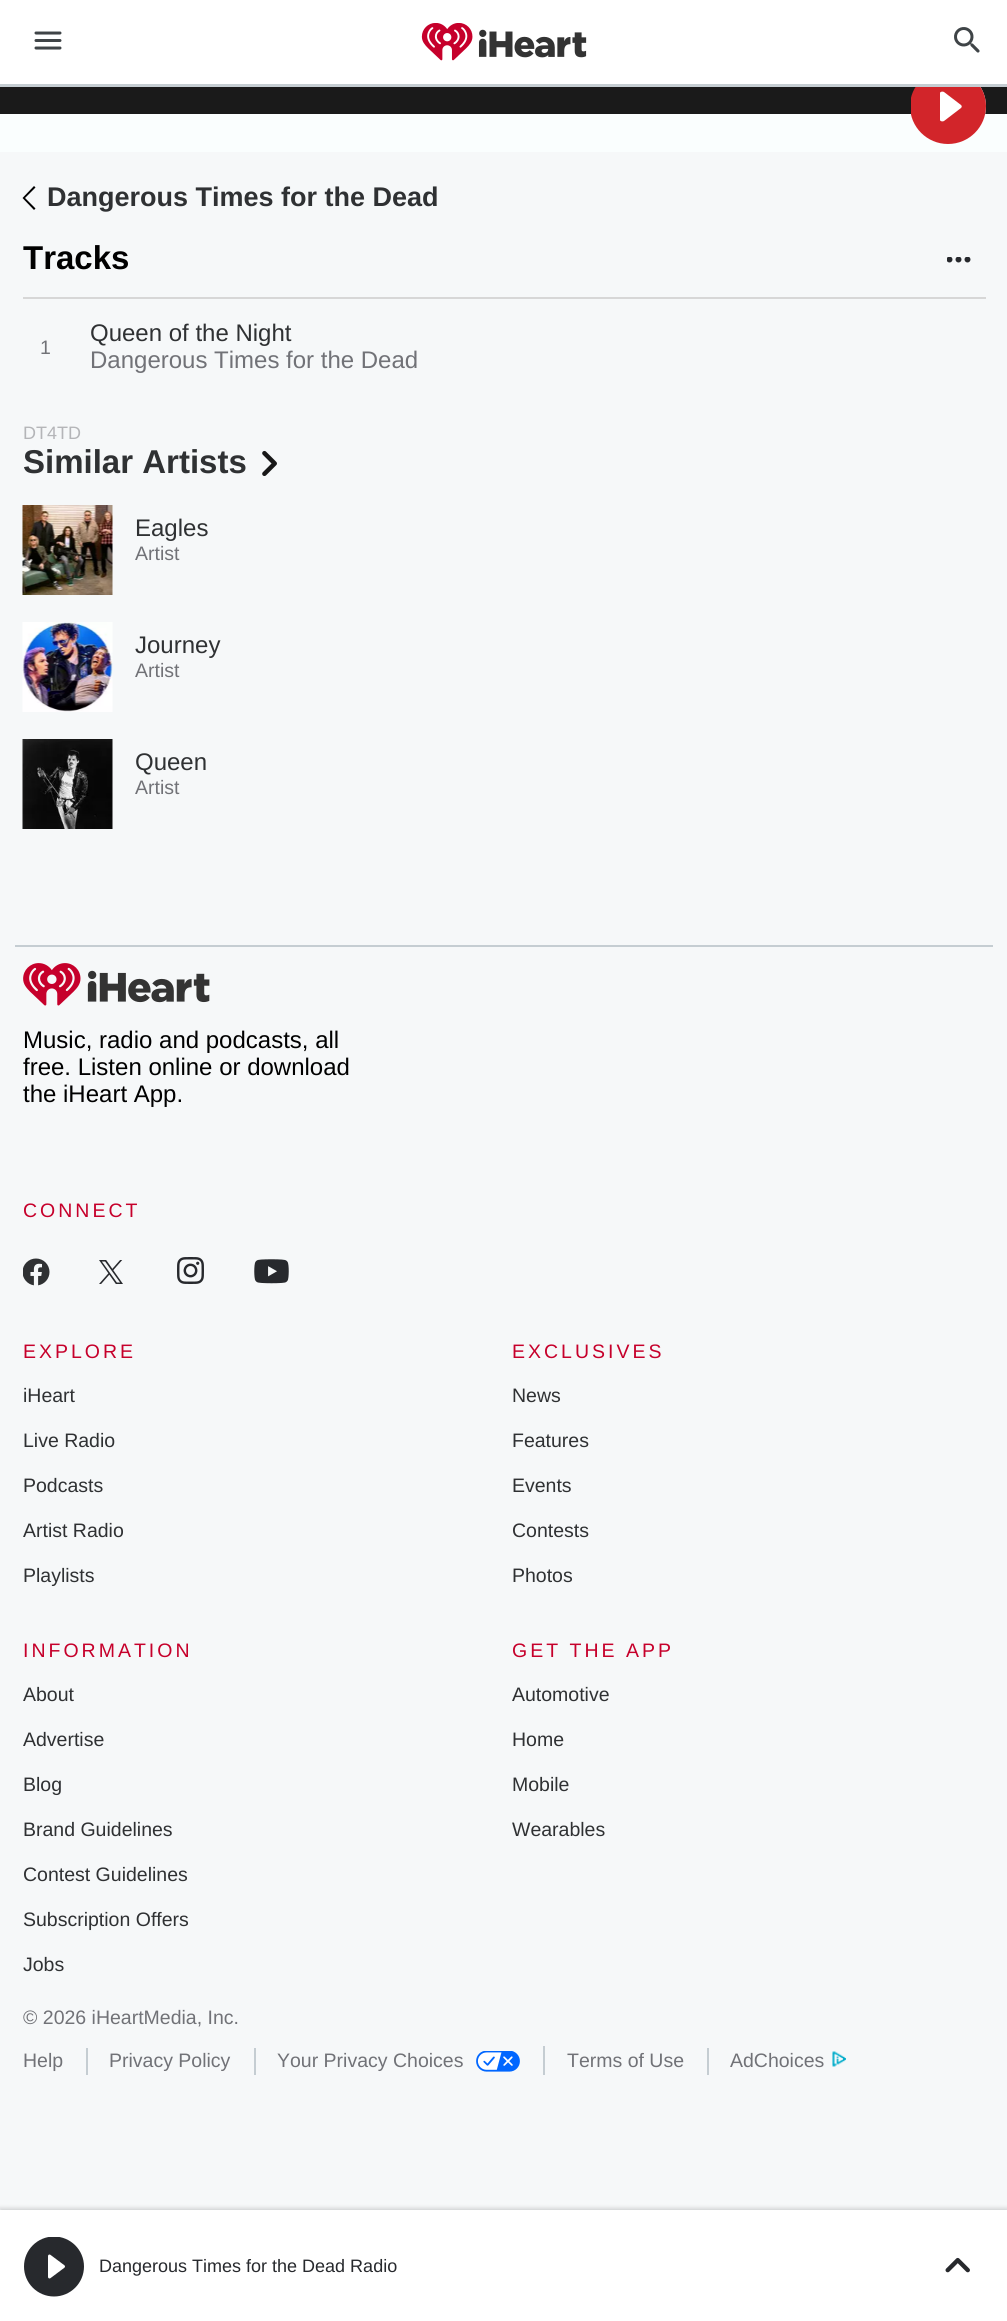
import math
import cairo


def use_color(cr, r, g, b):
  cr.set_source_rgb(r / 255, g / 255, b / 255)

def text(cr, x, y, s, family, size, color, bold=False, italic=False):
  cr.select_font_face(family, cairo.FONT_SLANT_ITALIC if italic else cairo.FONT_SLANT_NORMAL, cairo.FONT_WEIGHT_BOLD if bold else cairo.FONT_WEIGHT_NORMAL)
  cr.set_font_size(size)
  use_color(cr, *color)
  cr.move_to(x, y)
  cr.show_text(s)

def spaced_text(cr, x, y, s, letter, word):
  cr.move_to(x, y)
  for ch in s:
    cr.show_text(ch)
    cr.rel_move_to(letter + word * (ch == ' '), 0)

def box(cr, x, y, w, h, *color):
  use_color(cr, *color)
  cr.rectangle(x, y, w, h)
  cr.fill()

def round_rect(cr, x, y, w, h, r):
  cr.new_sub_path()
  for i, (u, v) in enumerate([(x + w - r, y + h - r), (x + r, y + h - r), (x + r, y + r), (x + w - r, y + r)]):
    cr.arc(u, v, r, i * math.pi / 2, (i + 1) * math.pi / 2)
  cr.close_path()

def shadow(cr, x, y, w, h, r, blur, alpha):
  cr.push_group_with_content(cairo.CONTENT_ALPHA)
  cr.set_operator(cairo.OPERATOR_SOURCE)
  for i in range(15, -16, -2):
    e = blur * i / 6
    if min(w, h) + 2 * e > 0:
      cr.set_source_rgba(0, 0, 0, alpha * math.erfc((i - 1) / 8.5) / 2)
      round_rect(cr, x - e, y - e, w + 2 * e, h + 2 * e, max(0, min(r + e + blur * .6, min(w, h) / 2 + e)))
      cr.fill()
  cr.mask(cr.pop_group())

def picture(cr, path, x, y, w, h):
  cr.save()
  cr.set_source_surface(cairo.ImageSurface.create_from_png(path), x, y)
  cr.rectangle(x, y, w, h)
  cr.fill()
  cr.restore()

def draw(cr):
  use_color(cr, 250, 254, 254)
  cr.paint()
  box(cr, 0, 87, 1007, 27, 26, 26, 26)
  use_color(cr, 255, 255, 255)
  cr.arc(948.5, 106.5, 37.5, 0, 2 * math.pi)
  cr.fill()
  cr.save()
  cr.rectangle(911, 69, 75, 75)
  cr.clip()
  use_color(cr, 210, 37, 42)
  cr.new_path()
  cr.move_to(948, 69)
  cr.curve_to(927, 69, 910, 86, 910, 106)
  cr.curve_to(910, 127, 927, 144, 948, 144)
  cr.curve_to(969, 144, 986, 127, 986, 106)
  cr.curve_to(986, 86, 969, 69, 948, 69)
  cr.close_path()
  cr.move_to(940, 120)
  cr.line_to(940, 93)
  cr.curve_to(940, 92, 942, 91, 944, 92)
  cr.line_to(961, 105)
  cr.curve_to(962, 106, 962, 107, 961, 108)
  cr.line_to(944, 121)
  cr.curve_to(942, 122, 940, 121, 940, 120)
  cr.close_path()
  cr.fill()
  cr.restore()
  box(cr, 0, 0, 1007, 84, 255, 255, 255)
  box(cr, 0, 84, 1007, 3, 197, 205, 210)
  picture(cr, "img_01.png", 34, 31, 28, 19)
  picture(cr, "img_02.png", 421, 23, 166, 38)
  picture(cr, "img_03.png", 954, 27, 26, 26)
  box(cr, 0, 152, 1007, 2058, 246, 248, 249)
  use_color(cr, 0, 0, 0)
  cr.new_path()
  cr.move_to(34, 186)
  cr.line_to(22.5, 198)
  cr.line_to(34, 210)
  cr.line_to(35.5, 208.5)
  cr.line_to(25, 198)
  cr.line_to(35.5, 187.5)
  cr.close_path()
  cr.fill()
  box(cr, 23, 297, 963, 2, 215, 215, 215)
  picture(cr, "img_04.png", 947, 257, 24, 6)
  picture(cr, "img_05.png", 262, 450, 15, 26)
  picture(cr, "img_06.png", 22, 505, 91, 90)
  picture(cr, "img_07.png", 22, 622, 91, 90)
  picture(cr, "img_08.png", 22, 739, 91, 90)
  box(cr, 15, 945, 978, 2, 197, 205, 210)
  picture(cr, "img_09.png", 23, 963, 187, 43)
  picture(cr, "img_10.png", 23, 1258, 27, 28)
  picture(cr, "img_11.png", 99, 1260, 24, 24)
  picture(cr, "img_12.png", 177, 1257, 27, 27)
  picture(cr, "img_13.png", 254, 1259, 35, 25)
  box(cr, 86, 2048, 2, 27, 197, 205, 210)
  box(cr, 254, 2048, 2, 27, 197, 205, 210)
  box(cr, 543, 2046, 2, 29, 197, 205, 210)
  picture(cr, "img_14.png", 476, 2051, 44, 21)
  box(cr, 707, 2048, 2, 27, 197, 205, 210)
  picture(cr, "img_15.png", 832, 2051, 14, 16)
  use_color(cr, 0, 0, 0)
  shadow(cr, 0, 2208, 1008, 113, 0, 2, 0.15)
  box(cr, 0, 2210, 1007, 111, 255, 255, 255)
  picture(cr, "img_16.png", 24, 2237, 60, 60)
  picture(cr, "img_17.png", 945, 2257, 25, 16)
  text(cr, 47, 206, "Dangerous Times for the Dead", "Liberation Sans", 27, (47, 49, 51), bold=True)
  text(cr, 23, 269, "Tracks", "Liberation Sans", 33, (0, 0, 0), bold=True)
  text(cr, 40, 354, "1", "Liberation Sans", 19.5, (113, 114, 119))
  text(cr, 90, 341, "Queen of the Night", "Liberation Sans", 24, (47, 49, 51))
  text(cr, 90, 368, "Dangerous Times for the Dead", "Liberation Sans", 24, (113, 114, 119))
  text(cr, 23, 439, "DT4TD", "Liberation Sans", 18, (180, 181, 184))
  text(cr, 23, 473, "Similar Artists", "Liberation Sans", 33, (47, 49, 51), bold=True)
  text(cr, 135, 536, "Eagles", "Liberation Sans", 24, (47, 49, 51))
  text(cr, 135, 560, "Artist", "Liberation Sans", 19.5, (113, 114, 119))
  text(cr, 135, 653, "Journey", "Liberation Sans", 24, (47, 49, 51))
  text(cr, 135, 677, "Artist", "Liberation Sans", 19.5, (113, 114, 119))
  text(cr, 135, 770, "Queen", "Liberation Sans", 24, (47, 49, 51))
  text(cr, 135, 794, "Artist", "Liberation Sans", 19.5, (113, 114, 119))
  text(cr, 23, 1048, "Music, radio and podcasts, all", "Liberation Sans", 24, (0, 0, 0))
  text(cr, 23, 1075, "free. Listen online or download", "Liberation Sans", 24, (0, 0, 0))
  text(cr, 23, 1102, "the iHeart App.", "Liberation Sans", 24, (0, 0, 0))
  cr.set_font_size(19.5)
  use_color(cr, 198, 0, 43)
  spaced_text(cr, 23, 1217, "CONNECT", 3, 0)
  spaced_text(cr, 23, 1358, "EXPLORE", 3, 0)
  text(cr, 23, 1402, "iHeart", "Liberation Sans", 19.5, (47, 49, 51))
  text(cr, 23, 1447, "Live Radio", "Liberation Sans", 19.5, (47, 49, 51))
  text(cr, 23, 1492, "Podcasts", "Liberation Sans", 19.5, (47, 49, 51))
  text(cr, 23, 1537, "Artist Radio", "Liberation Sans", 19.5, (47, 49, 51))
  text(cr, 23, 1582, "Playlists", "Liberation Sans", 19.5, (47, 49, 51))
  use_color(cr, 198, 0, 43)
  spaced_text(cr, 512, 1358, "EXCLUSIVES", 3, 0)
  text(cr, 512, 1402, "News", "Liberation Sans", 19.5, (47, 49, 51))
  text(cr, 512, 1447, "Features", "Liberation Sans", 19.5, (47, 49, 51))
  text(cr, 512, 1492, "Events", "Liberation Sans", 19.5, (47, 49, 51))
  text(cr, 512, 1537, "Contests", "Liberation Sans", 19.5, (47, 49, 51))
  text(cr, 512, 1582, "Photos", "Liberation Sans", 19.5, (47, 49, 51))
  use_color(cr, 198, 0, 43)
  spaced_text(cr, 23, 1657, "INFORMATION", 3, 0)
  text(cr, 23, 1701, "About", "Liberation Sans", 19.5, (47, 49, 51))
  text(cr, 23, 1746, "Advertise", "Liberation Sans", 19.5, (47, 49, 51))
  text(cr, 23, 1791, "Blog", "Liberation Sans", 19.5, (47, 49, 51))
  text(cr, 23, 1836, "Brand Guidelines", "Liberation Sans", 19.5, (47, 49, 51))
  text(cr, 23, 1881, "Contest Guidelines", "Liberation Sans", 19.5, (47, 49, 51))
  text(cr, 23, 1926, "Subscription Offers", "Liberation Sans", 19.5, (47, 49, 51))
  text(cr, 23, 1971, "Jobs", "Liberation Sans", 19.5, (47, 49, 51))
  use_color(cr, 198, 0, 43)
  spaced_text(cr, 512, 1657, "GET THE APP", 3, 0)
  text(cr, 512, 1701, "Automotive", "Liberation Sans", 19.5, (47, 49, 51))
  text(cr, 512, 1746, "Home", "Liberation Sans", 19.5, (47, 49, 51))
  text(cr, 512, 1791, "Mobile", "Liberation Sans", 19.5, (47, 49, 51))
  text(cr, 512, 1836, "Wearables", "Liberation Sans", 19.5, (47, 49, 51))
  text(cr, 23, 2024, "© 2026 iHeartMedia, Inc.", "Liberation Sans", 19.5, (113, 114, 119))
  text(cr, 23, 2067, "Help", "Liberation Sans", 19.5, (113, 114, 119))
  text(cr, 109, 2067, "Privacy Policy", "Liberation Sans", 19.5, (113, 114, 119))
  text(cr, 277, 2067, "Your Privacy Choices", "Liberation Sans", 19.5, (113, 114, 119))
  text(cr, 567, 2067, "Terms of Use", "Liberation Sans", 19.5, (113, 114, 119))
  text(cr, 730, 2067, "AdChoices", "Liberation Sans", 19.5, (113, 114, 119))
  text(cr, 99, 2272, "Dangerous Times for the Dead Radio", "Liberation Sans", 18, (39, 41, 45))


surface = cairo.ImageSurface(cairo.FORMAT_RGB24, 1007, 2321)
cr = cairo.Context(surface)
options = cairo.FontOptions()
options.set_hint_metrics(cairo.HINT_METRICS_OFF)
options.set_hint_style(cairo.HINT_STYLE_NONE)
cr.set_font_options(options)
cr.set_miter_limit(4)
draw(cr)
surface.write_to_png("out.png")
